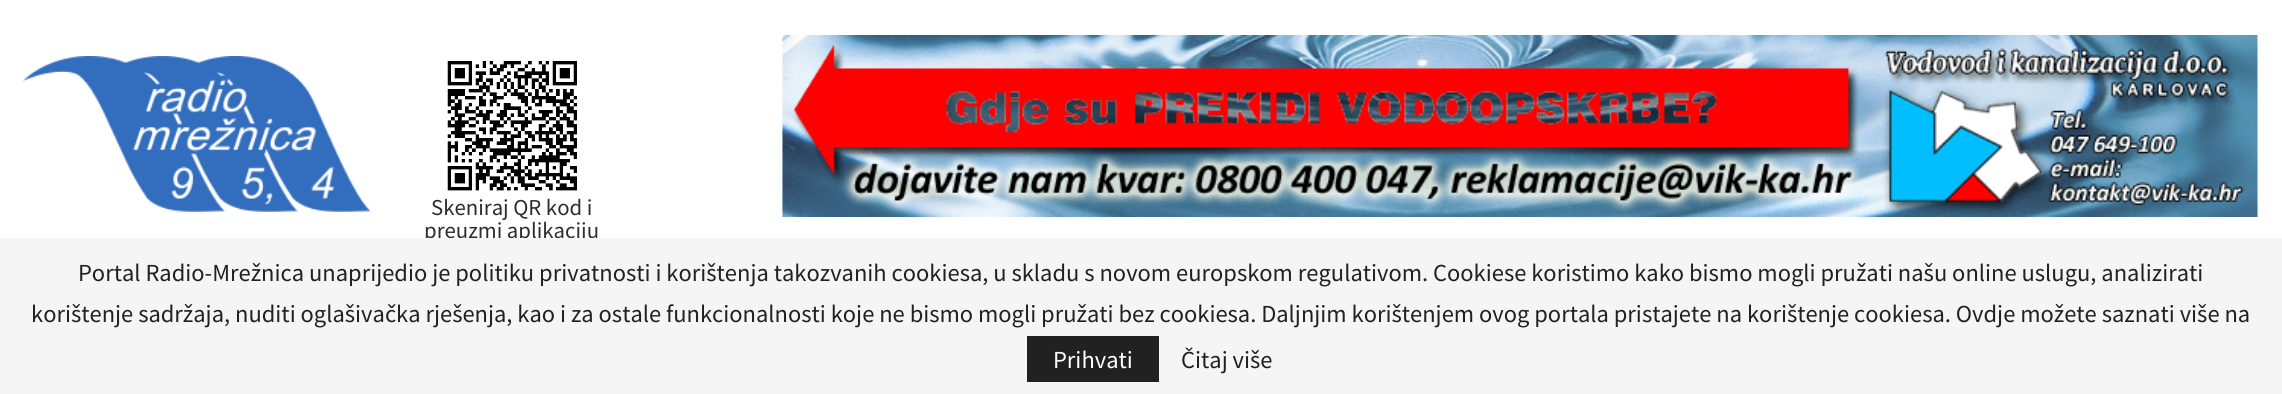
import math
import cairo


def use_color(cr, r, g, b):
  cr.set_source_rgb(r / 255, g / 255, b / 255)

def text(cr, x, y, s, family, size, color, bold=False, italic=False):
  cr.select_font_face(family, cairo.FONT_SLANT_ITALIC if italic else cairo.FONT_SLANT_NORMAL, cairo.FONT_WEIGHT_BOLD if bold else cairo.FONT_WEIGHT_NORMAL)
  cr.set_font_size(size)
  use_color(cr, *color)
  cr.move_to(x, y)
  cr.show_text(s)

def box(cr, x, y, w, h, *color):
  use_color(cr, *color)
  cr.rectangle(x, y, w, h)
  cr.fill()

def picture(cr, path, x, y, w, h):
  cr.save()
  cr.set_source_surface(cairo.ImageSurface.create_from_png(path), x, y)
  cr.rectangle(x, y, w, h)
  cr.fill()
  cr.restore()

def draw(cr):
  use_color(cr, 255, 255, 255)
  cr.paint()
  picture(cr, "img_01.png", 22, 56, 349, 156)
  picture(cr, "img_02.png", 447, 61, 130, 130)
  picture(cr, "img_03.png", 782, 35, 1476, 182)
  text(cr, 431, 215, "Skeniraj QR kod i", "Source Sans Pro", 22.75, (45, 45, 45))
  text(cr, 424, 238, "preuzmi aplikaciju", "Source Sans Pro", 22.75, (45, 45, 45))
  box(cr, 0, 238, 2282, 156, 245, 245, 245)
  text(cr, 78, 281, "Portal Radio-Mrežnica unaprijedio je politiku privatnosti i korištenja takozvanih cookiesa, u skladu s novom europskom regulativom. Cookiese koristimo kako bismo mogli pružati našu online uslugu, analizirati", "Source Sans Pro", 24.5, (33, 33, 33))
  text(cr, 31, 322, "korištenje sadržaja, nuditi oglašivačka rješenja, kao i za ostale funkcionalnosti koje ne bismo mogli pružati bez cookiesa. Daljnjim korištenjem ovog portala pristajete na korištenje cookiesa. Ovdje možete saznati više na", "Source Sans Pro", 24.5, (33, 33, 33))
  box(cr, 1027, 336, 132, 46, 33, 33, 33)
  text(cr, 1053, 368, "Prihvati", "Source Sans Pro", 24.5, (255, 255, 255))
  text(cr, 1181, 368, "Čitaj više", "Source Sans Pro", 24.5, (33, 33, 33))


surface = cairo.ImageSurface(cairo.FORMAT_RGB24, 2282, 394)
cr = cairo.Context(surface)
options = cairo.FontOptions()
options.set_hint_metrics(cairo.HINT_METRICS_OFF)
options.set_hint_style(cairo.HINT_STYLE_NONE)
cr.set_font_options(options)
cr.set_miter_limit(4)
draw(cr)
surface.write_to_png("out.png")
